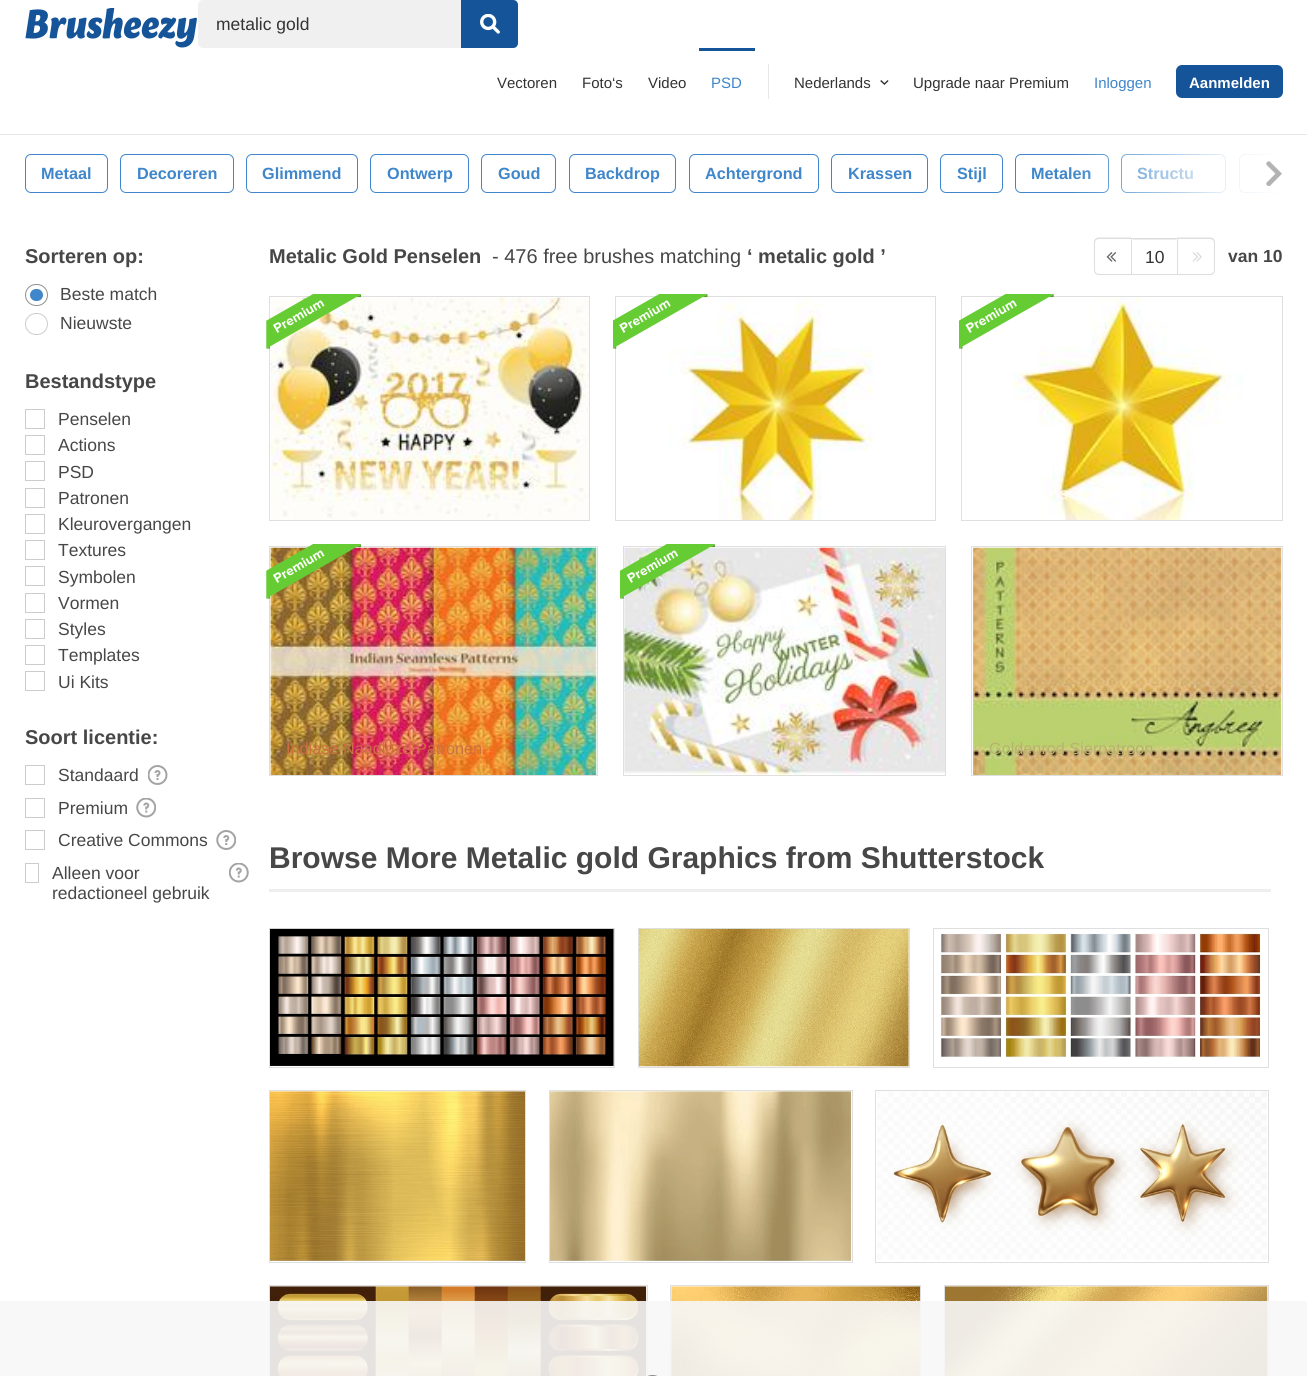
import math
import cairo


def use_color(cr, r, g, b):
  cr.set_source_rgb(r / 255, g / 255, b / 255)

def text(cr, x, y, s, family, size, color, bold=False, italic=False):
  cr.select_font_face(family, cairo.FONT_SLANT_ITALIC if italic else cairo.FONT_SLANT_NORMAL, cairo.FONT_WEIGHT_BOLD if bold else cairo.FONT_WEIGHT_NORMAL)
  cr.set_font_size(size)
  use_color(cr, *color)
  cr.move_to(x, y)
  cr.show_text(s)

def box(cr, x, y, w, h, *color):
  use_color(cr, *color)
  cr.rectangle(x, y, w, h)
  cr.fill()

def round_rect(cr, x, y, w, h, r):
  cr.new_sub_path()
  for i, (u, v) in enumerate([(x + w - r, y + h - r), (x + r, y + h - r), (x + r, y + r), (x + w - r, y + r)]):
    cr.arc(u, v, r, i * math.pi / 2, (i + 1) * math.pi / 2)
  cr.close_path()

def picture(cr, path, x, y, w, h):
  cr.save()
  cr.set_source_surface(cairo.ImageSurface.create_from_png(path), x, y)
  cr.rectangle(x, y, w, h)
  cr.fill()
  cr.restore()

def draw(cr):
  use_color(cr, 255, 255, 255)
  cr.paint()
  box(cr, 0, 134, 1307, 1, 232, 232, 232)
  picture(cr, "img_01.png", 25, 8, 172, 40)
  use_color(cr, 240, 240, 240)
  round_rect(cr, 198, 0, 320, 48, 5)
  cr.fill()
  use_color(cr, 21, 84, 153)
  cr.new_path()
  cr.move_to(461, 0)
  cr.line_to(513, 0)
  cr.curve_to(516, 0, 518, 2, 518, 5)
  cr.line_to(518, 43)
  cr.curve_to(518, 46, 516, 48, 513, 48)
  cr.line_to(461, 48)
  cr.close_path()
  cr.fill()
  picture(cr, "img_02.png", 480, 14, 20, 20)
  box(cr, 699, 48, 56, 3, 21, 84, 153)
  box(cr, 768, 64, 1, 35, 232, 232, 232)
  picture(cr, "img_03.png", 880, 80, 9, 5)
  use_color(cr, 21, 84, 153)
  round_rect(cr, 1176, 65, 107, 33, 6)
  cr.fill()
  round_rect(cr, 25.5, 154.5, 82, 38, 5.5)
  use_color(cr, 63, 134, 202)
  cr.set_line_width(1)
  cr.stroke()
  round_rect(cr, 120.5, 154.5, 113, 38, 5.5)
  cr.stroke()
  round_rect(cr, 246.5, 154.5, 111, 38, 5.5)
  cr.stroke()
  round_rect(cr, 370.5, 154.5, 98, 38, 5.5)
  cr.stroke()
  round_rect(cr, 481.5, 154.5, 74, 38, 5.5)
  cr.stroke()
  round_rect(cr, 569.5, 154.5, 106, 38, 5.5)
  cr.stroke()
  round_rect(cr, 689.5, 154.5, 129, 38, 5.5)
  cr.stroke()
  round_rect(cr, 831.5, 154.5, 96, 38, 5.5)
  cr.stroke()
  round_rect(cr, 940.5, 154.5, 62, 38, 5.5)
  cr.stroke()
  round_rect(cr, 1015.5, 154.5, 93, 38, 5.5)
  cr.stroke()
  round_rect(cr, 1121.5, 154.5, 104, 38, 5.5)
  cr.stroke()
  cr.save()
  cr.rectangle(25, 154, 1258, 55)
  cr.clip()
  round_rect(cr, 1239.5, 154.5, 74, 38, 5.5)
  cr.stroke()
  cr.restore()
  round_rect(cr, 25.5, 284.5, 22, 21, 10.5)
  use_color(cr, 144, 144, 144)
  cr.stroke()
  use_color(cr, 63, 134, 202)
  round_rect(cr, 30, 289, 13, 12, 6)
  cr.fill()
  round_rect(cr, 25.5, 313.5, 22, 21, 10.5)
  use_color(cr, 204, 204, 204)
  cr.stroke()
  cr.rectangle(25.5, 409.5, 19, 19)
  cr.stroke()
  cr.rectangle(25.5, 435.5, 19, 19)
  cr.stroke()
  cr.rectangle(25.5, 461.5, 19, 19)
  cr.stroke()
  cr.rectangle(25.5, 488.5, 19, 19)
  cr.stroke()
  cr.rectangle(25.5, 514.5, 19, 19)
  cr.stroke()
  cr.rectangle(25.5, 540.5, 19, 19)
  cr.stroke()
  cr.rectangle(25.5, 566.5, 19, 19)
  cr.stroke()
  cr.rectangle(25.5, 593.5, 19, 19)
  cr.stroke()
  cr.rectangle(25.5, 619.5, 19, 19)
  cr.stroke()
  cr.rectangle(25.5, 645.5, 19, 19)
  cr.stroke()
  cr.rectangle(25.5, 671.5, 19, 19)
  cr.stroke()
  cr.rectangle(25.5, 765.5, 19, 19)
  cr.stroke()
  picture(cr, "img_05.png", 148, 765, 20, 20)
  cr.rectangle(25.5, 798.5, 19, 19)
  cr.stroke()
  picture(cr, "img_06.png", 136, 798, 20, 20)
  cr.rectangle(25.5, 830.5, 19, 19)
  cr.stroke()
  picture(cr, "img_07.png", 216, 830, 20, 20)
  cr.rectangle(25.5, 863.5, 13, 19)
  cr.stroke()
  picture(cr, "img_08.png", 229, 863, 20, 20)
  use_color(cr, 221, 221, 221)
  cr.set_fill_rule(cairo.FILL_RULE_EVEN_ODD)
  cr.new_path()
  cr.move_to(1099, 237.5)
  cr.line_to(1131, 237.5)
  cr.line_to(1131, 275)
  cr.line_to(1099, 275)
  cr.curve_to(1096, 275, 1094, 273, 1094, 270)
  cr.line_to(1094, 242.5)
  cr.curve_to(1094, 239.5, 1096, 237.5, 1099, 237.5)
  cr.close_path()
  cr.move_to(1099, 239)
  cr.line_to(1131, 239)
  cr.line_to(1131, 274)
  cr.line_to(1099, 274)
  cr.curve_to(1096.5, 274, 1095, 272, 1095, 270)
  cr.line_to(1095, 242.5)
  cr.curve_to(1095, 240.5, 1096.5, 239, 1099, 239)
  cr.close_path()
  cr.fill()
  picture(cr, "img_09.png", 1106, 252, 11, 10)
  box(cr, 1133, 239, 43, 1, 236, 236, 236)
  cr.rectangle(1131.5, 238.5, 46, 36)
  use_color(cr, 221, 221, 221)
  cr.stroke()
  cr.new_path()
  cr.move_to(1177.5, 237.5)
  cr.line_to(1210, 237.5)
  cr.curve_to(1213, 237.5, 1215, 239.5, 1215, 242.5)
  cr.line_to(1215, 270)
  cr.curve_to(1215, 273, 1213, 275, 1210, 275)
  cr.line_to(1177.5, 275)
  cr.close_path()
  cr.move_to(1177.5, 239)
  cr.line_to(1210, 239)
  cr.curve_to(1212, 239, 1214, 240.5, 1214, 242.5)
  cr.line_to(1214, 270)
  cr.curve_to(1214, 272, 1212, 274, 1210, 274)
  cr.line_to(1177.5, 274)
  cr.close_path()
  cr.fill()
  picture(cr, "img_10.png", 1192, 252, 10, 10)
  cr.rectangle(269.5, 296.5, 320, 224)
  use_color(cr, 223, 223, 223)
  cr.stroke()
  picture(cr, "img_12.png", 270, 297, 319, 223)
  picture(cr, "img_11.png", 266, 294, 95, 55)
  cr.rectangle(615.5, 296.5, 320, 224)
  cr.stroke()
  picture(cr, "img_14.png", 668, 298, 206, 222)
  picture(cr, "img_13.png", 613, 294, 95, 55)
  cr.rectangle(961.5, 296.5, 321, 224)
  cr.stroke()
  picture(cr, "img_16.png", 1013, 297, 230, 223)
  picture(cr, "img_15.png", 959, 294, 95, 55)
  cr.rectangle(269.5, 546.5, 328, 229)
  cr.stroke()
  picture(cr, "img_18.png", 270, 547, 327, 228)
  picture(cr, "img_17.png", 266, 544, 95, 55)
  cr.rectangle(623.5, 546.5, 322, 229)
  cr.stroke()
  picture(cr, "img_20.png", 624, 547, 321, 228)
  picture(cr, "img_19.png", 620, 544, 95, 55)
  cr.rectangle(971.5, 546.5, 311, 229)
  cr.stroke()
  picture(cr, "img_21.png", 973, 547, 309, 228)
  box(cr, 269, 889, 1002, 3, 238, 238, 238)
  cr.rectangle(269.5, 928.5, 345, 139)
  use_color(cr, 223, 223, 223)
  cr.stroke()
  picture(cr, "img_22.png", 270, 928, 344, 138)
  cr.rectangle(638.5, 928.5, 271, 139)
  cr.stroke()
  picture(cr, "img_23.png", 638, 928, 271, 139)
  cr.rectangle(933.5, 928.5, 335, 139)
  cr.stroke()
  picture(cr, "img_24.png", 940, 933, 322, 126)
  cr.rectangle(269.5, 1090.5, 256, 172)
  cr.stroke()
  picture(cr, "img_25.png", 270, 1091, 255, 170)
  cr.rectangle(549.5, 1090.5, 303, 172)
  cr.stroke()
  picture(cr, "img_26.png", 550, 1091, 302, 170)
  cr.rectangle(875.5, 1090.5, 393, 172)
  cr.stroke()
  picture(cr, "img_27.png", 877, 1091, 390, 169)
  cr.rectangle(269.5, 1285.5, 378, 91)
  cr.stroke()
  picture(cr, "img_28.png", 270, 1286, 377, 90)
  cr.rectangle(670.5, 1285.5, 250, 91)
  cr.stroke()
  picture(cr, "img_29.png", 671, 1286, 249, 90)
  cr.rectangle(944.5, 1285.5, 324, 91)
  cr.stroke()
  picture(cr, "img_30.png", 945, 1286, 323, 90)
  cr.set_source_rgba(0.969, 0.969, 0.969, 0.9)
  cr.rectangle(0, 1301, 1307, 75)
  cr.fill()
  round_rect(cr, 639.5, 1375.5, 26, 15, 13)
  use_color(cr, 136, 136, 136)
  cr.stroke()
  text(cr, 216, 30, "metalic gold", "Liberation Sans", 17.5, (51, 51, 51))
  text(cr, 497, 88, "Vectoren", "Liberation Sans", 15, (51, 51, 51))
  text(cr, 582, 88, "Foto‘s", "Liberation Sans", 15, (51, 51, 51))
  text(cr, 648, 88, "Video", "Liberation Sans", 15, (51, 51, 51))
  text(cr, 711, 88, "PSD", "Liberation Sans", 15, (63, 134, 202))
  text(cr, 794, 88, "Nederlands", "Liberation Sans", 15, (51, 51, 51))
  text(cr, 913, 88, "Upgrade naar Premium", "Liberation Sans", 15, (51, 51, 51))
  text(cr, 1094, 88, "Inloggen", "Liberation Sans", 15, (63, 134, 202))
  text(cr, 1189, 88, "Aanmelden", "Liberation Sans", 15, (255, 255, 255), bold=True)
  text(cr, 41, 179, "Metaal", "Liberation Sans", 16.25, (63, 134, 202), bold=True)
  text(cr, 137, 179, "Decoreren", "Liberation Sans", 16.25, (63, 134, 202), bold=True)
  text(cr, 262, 179, "Glimmend", "Liberation Sans", 16.25, (63, 134, 202), bold=True)
  text(cr, 387, 179, "Ontwerp", "Liberation Sans", 16.25, (63, 134, 202), bold=True)
  text(cr, 498, 179, "Goud", "Liberation Sans", 16.25, (63, 134, 202), bold=True)
  text(cr, 585, 179, "Backdrop", "Liberation Sans", 16.25, (63, 134, 202), bold=True)
  text(cr, 705, 179, "Achtergrond", "Liberation Sans", 16.25, (63, 134, 202), bold=True)
  text(cr, 848, 179, "Krassen", "Liberation Sans", 16.25, (63, 134, 202), bold=True)
  text(cr, 957, 179, "Stijl", "Liberation Sans", 16.25, (63, 134, 202), bold=True)
  text(cr, 1031, 179, "Metalen", "Liberation Sans", 16.25, (63, 134, 202), bold=True)
  text(cr, 1137, 179, "Structu", "Liberation Sans", 16.25, (63, 134, 202), bold=True)
  gradient = cairo.LinearGradient(1070, 173, 1283, 173)
  gradient.add_color_stop_rgba(0, 1, 1, 1, 0)
  gradient.add_color_stop_rgba(0.75, 1, 1, 1, 0.9)
  gradient.add_color_stop_rgba(1, 1, 1, 1, 1)
  cr.set_source(gradient)
  cr.rectangle(1074, 154, 209, 39)
  cr.fill()
  picture(cr, "img_04.png", 1266, 161, 16, 25)
  text(cr, 25, 263, "Sorteren op:", "Liberation Sans", 20, (71, 71, 71), bold=True)
  text(cr, 60, 300, "Beste match", "Liberation Sans", 17.5, (71, 71, 71))
  text(cr, 60, 329, "Nieuwste", "Liberation Sans", 17.5, (71, 71, 71))
  text(cr, 25, 388, "Bestandstype", "Liberation Sans", 20, (71, 71, 71), bold=True)
  text(cr, 58, 425, "Penselen", "Liberation Sans", 17.5, (71, 71, 71))
  text(cr, 58, 451, "Actions", "Liberation Sans", 17.5, (71, 71, 71))
  text(cr, 58, 478, "PSD", "Liberation Sans", 17.5, (71, 71, 71))
  text(cr, 58, 504, "Patronen", "Liberation Sans", 17.5, (71, 71, 71))
  text(cr, 58, 530, "Kleurovergangen", "Liberation Sans", 17.5, (71, 71, 71))
  text(cr, 58, 556, "Textures", "Liberation Sans", 17.5, (71, 71, 71))
  text(cr, 58, 583, "Symbolen", "Liberation Sans", 17.5, (71, 71, 71))
  text(cr, 58, 609, "Vormen", "Liberation Sans", 17.5, (71, 71, 71))
  text(cr, 58, 635, "Styles", "Liberation Sans", 17.5, (71, 71, 71))
  text(cr, 58, 661, "Templates", "Liberation Sans", 17.5, (71, 71, 71))
  text(cr, 58, 688, "Ui Kits", "Liberation Sans", 17.5, (71, 71, 71))
  text(cr, 25, 744, "Soort licentie:", "Liberation Sans", 20, (71, 71, 71), bold=True)
  text(cr, 58, 781, "Standaard", "Liberation Sans", 17.5, (71, 71, 71))
  text(cr, 58, 814, "Premium", "Liberation Sans", 17.5, (71, 71, 71))
  text(cr, 58, 846, "Creative Commons", "Liberation Sans", 17.5, (71, 71, 71))
  text(cr, 52, 879, "Alleen voor", "Liberation Sans", 17.5, (71, 71, 71))
  text(cr, 52, 899, "redactioneel gebruik", "Liberation Sans", 17.5, (71, 71, 71))
  text(cr, 269, 263, "Metalic Gold Penselen", "Liberation Sans", 20, (71, 71, 71), bold=True)
  text(cr, 492, 263, "- 476 free brushes matching", "Liberation Sans", 20, (71, 71, 71))
  text(cr, 747, 263, "‘ metalic gold ’", "Liberation Sans", 20, (71, 71, 71), bold=True)
  text(cr, 1145, 263, "10", "Liberation Sans", 17.5, (51, 51, 51))
  text(cr, 1228, 262, "van 10", "Liberation Sans", 17.5, (71, 71, 71), bold=True)
  text(cr, 1060, 499, "s", "Liberation Sans", 16.25, (254, 253, 248))
  text(cr, 286, 754, "Indiase Naadloze Patronen", "Liberation Sans", 16.25, (205, 111, 66))
  text(cr, 989, 754, "Goldenrod Sierpatroon", "Liberation Sans", 16.25, (182, 180, 107))
  text(cr, 269, 868, "Browse More Metalic gold Graphics from Shutterstock", "Liberation Sans", 30, (71, 71, 71), bold=True)


surface = cairo.ImageSurface(cairo.FORMAT_RGB24, 1307, 1376)
cr = cairo.Context(surface)
options = cairo.FontOptions()
options.set_hint_metrics(cairo.HINT_METRICS_OFF)
options.set_hint_style(cairo.HINT_STYLE_NONE)
cr.set_font_options(options)
cr.set_miter_limit(4)
draw(cr)
surface.write_to_png("out.png")
